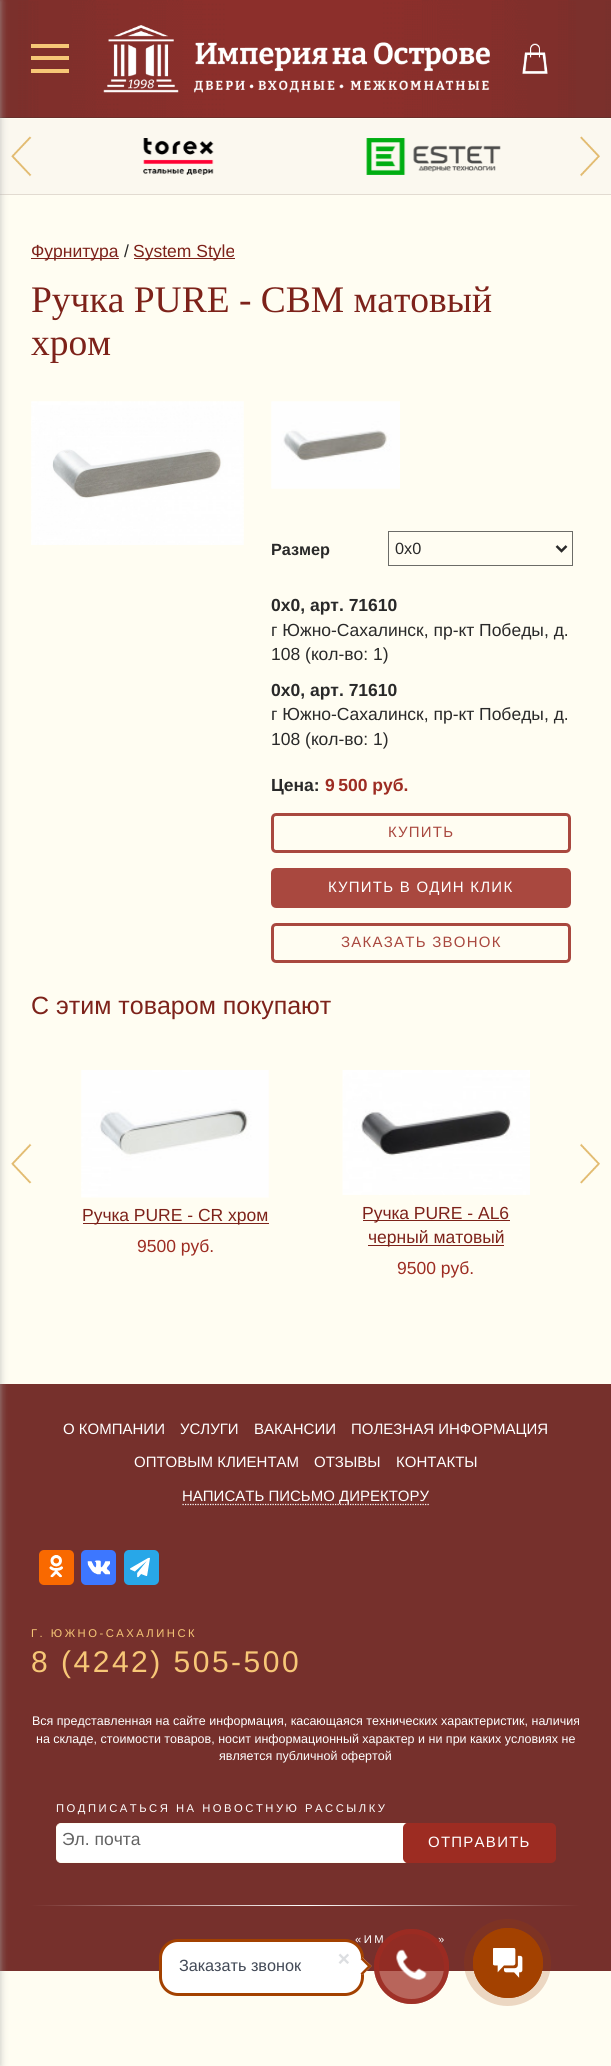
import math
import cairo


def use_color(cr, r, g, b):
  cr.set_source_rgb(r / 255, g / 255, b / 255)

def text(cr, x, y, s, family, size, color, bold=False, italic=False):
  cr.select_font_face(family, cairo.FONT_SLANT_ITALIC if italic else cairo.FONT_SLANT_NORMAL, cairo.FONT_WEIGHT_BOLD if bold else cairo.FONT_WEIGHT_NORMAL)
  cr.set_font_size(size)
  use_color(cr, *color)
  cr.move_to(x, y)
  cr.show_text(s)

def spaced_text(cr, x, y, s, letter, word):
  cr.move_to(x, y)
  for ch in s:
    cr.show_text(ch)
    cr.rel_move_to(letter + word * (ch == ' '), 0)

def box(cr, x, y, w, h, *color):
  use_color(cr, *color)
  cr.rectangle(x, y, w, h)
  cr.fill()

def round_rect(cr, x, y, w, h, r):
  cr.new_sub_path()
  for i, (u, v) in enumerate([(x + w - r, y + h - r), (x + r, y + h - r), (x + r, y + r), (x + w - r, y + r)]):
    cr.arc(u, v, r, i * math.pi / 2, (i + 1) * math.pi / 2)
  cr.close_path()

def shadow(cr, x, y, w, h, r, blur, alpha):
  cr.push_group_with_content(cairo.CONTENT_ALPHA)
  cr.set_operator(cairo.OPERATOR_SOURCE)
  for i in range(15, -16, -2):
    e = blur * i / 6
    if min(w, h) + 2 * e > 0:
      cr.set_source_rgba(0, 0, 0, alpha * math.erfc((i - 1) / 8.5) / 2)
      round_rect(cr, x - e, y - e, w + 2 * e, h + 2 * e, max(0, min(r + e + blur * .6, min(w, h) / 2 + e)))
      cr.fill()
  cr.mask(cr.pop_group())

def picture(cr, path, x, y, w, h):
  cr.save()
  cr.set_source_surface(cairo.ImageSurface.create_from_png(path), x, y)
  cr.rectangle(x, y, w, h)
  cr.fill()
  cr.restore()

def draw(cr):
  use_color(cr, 255, 253, 242)
  cr.paint()
  box(cr, 0, 117, 611, 1, 83, 49, 45)
  picture(cr, "img_01.png", 0, 0, 611, 118)
  box(cr, 31, 56, 38, 4, 247, 199, 119)
  box(cr, 31, 44, 38, 4, 247, 199, 119)
  box(cr, 31, 69, 38, 4, 247, 199, 119)
  picture(cr, "img_02.png", 103, 25, 387, 68)
  picture(cr, "img_03.png", 522, 43, 26, 31)
  box(cr, 0, 119, 611, 75, 251, 248, 239)
  box(cr, 0, 194, 611, 1, 226, 219, 209)
  picture(cr, "img_04.png", 11, 136, 21, 41)
  picture(cr, "img_10.png", 11, 1143, 21, 41)
  box(cr, 0, 1384, 611, 587, 118, 48, 44)
  use_color(cr, 173, 173, 173)
  shadow(cr, -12, 0, 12, 2066, 0, 4, 0.75)
  picture(cr, "img_05.png", 580, 136, 20, 41)
  picture(cr, "img_06.png", 143, 138, 71, 37)
  picture(cr, "img_07.png", 366, 138, 135, 37)
  box(cr, 31, 258, 88, 1, 125, 34, 26)
  box(cr, 134, 258, 101, 1, 125, 34, 26)
  picture(cr, "img_08.png", 31, 401, 213, 144)
  picture(cr, "img_09.png", 271, 401, 129, 88)
  cr.rectangle(388.5, 531.5, 184, 34)
  use_color(cr, 108, 108, 104)
  cr.set_line_width(1)
  cr.stroke()
  cr.new_path()
  cr.move_to(556.5, 546)
  cr.line_to(561.5, 551)
  cr.line_to(566.5, 546)
  use_color(cr, 41, 41, 41)
  cr.set_line_width(2.5)
  cr.stroke()
  round_rect(cr, 272.5, 814.5, 297, 37, 3.5)
  use_color(cr, 169, 72, 63)
  cr.set_line_width(3)
  cr.stroke()
  round_rect(cr, 272.5, 869.5, 297, 37, 3.5)
  cr.fill_preserve()
  cr.stroke()
  round_rect(cr, 272.5, 924.5, 297, 37, 3.5)
  cr.stroke()
  picture(cr, "img_11.png", 580, 1143, 20, 41)
  picture(cr, "img_12.png", 81, 1070, 188, 128)
  box(cr, 83, 1223, 186, 1, 125, 34, 26)
  picture(cr, "img_13.png", 342, 1070, 188, 125)
  box(cr, 363, 1220, 147, 1, 125, 34, 26)
  box(cr, 368, 1245, 136, 1, 125, 34, 26)
  use_color(cr, 255, 255, 255)
  round_rect(cr, 160.5, 1940.5, 202, 54, 17.5)
  cr.fill_preserve()
  use_color(cr, 163, 65, 0)
  cr.stroke()
  picture(cr, "img_14.png", 338, 1953, 11, 11)
  use_color(cr, 255, 255, 255)
  cr.new_path()
  cr.move_to(353.5, 1966)
  cr.line_to(362.5, 1957.5)
  cr.line_to(371.5, 1966)
  cr.line_to(362.5, 1975)
  cr.close_path()
  cr.fill()
  use_color(cr, 163, 65, 0)
  cr.new_path()
  cr.move_to(360.5, 1959)
  cr.line_to(362.5, 1957.5)
  cr.line_to(371.5, 1966)
  cr.line_to(369.5, 1968)
  cr.close_path()
  cr.fill()
  cr.new_path()
  cr.move_to(360.5, 1973.5)
  cr.line_to(369.5, 1964.5)
  cr.line_to(371.5, 1966)
  cr.line_to(362.5, 1975)
  cr.close_path()
  cr.fill()
  cr.new_path()
  cr.move_to(182.5, 1504.5)
  cr.line_to(429, 1504.5)
  use_color(cr, 255, 255, 255)
  cr.set_line_width(1.2)
  cr.set_dash([1.25, 1.25])
  cr.stroke()
  use_color(cr, 249, 105, 0)
  round_rect(cr, 39, 1550, 35, 35, 5)
  cr.fill()
  picture(cr, "img_16.png", 49, 1555, 14, 23)
  use_color(cr, 61, 119, 255)
  round_rect(cr, 81, 1550, 35, 35, 5)
  cr.fill()
  picture(cr, "img_17.png", 87, 1560, 23, 15)
  use_color(cr, 40, 167, 232)
  round_rect(cr, 124, 1550, 35, 35, 5)
  cr.fill()
  picture(cr, "img_18.png", 130, 1557, 20, 21)
  use_color(cr, 255, 255, 255)
  round_rect(cr, 56.5, 1823.5, 352, 39, 4.5)
  cr.fill_preserve()
  use_color(cr, 254, 253, 243)
  cr.set_line_width(1)
  cr.set_dash([])
  cr.stroke()
  use_color(cr, 157, 44, 34)
  round_rect(cr, 403, 1823, 153, 40, 5)
  cr.fill()
  gradient = cairo.LinearGradient(580, 1906, 31, 1906)
  gradient.add_color_stop_rgba(0, 0.463, 0.188, 0.173, 1)
  gradient.add_color_stop_rgba(0.5, 1, 1, 1, 1)
  gradient.add_color_stop_rgba(1, 0.463, 0.188, 0.173, 1)
  cr.set_source(gradient)
  cr.rectangle(31, 1905, 549, 1)
  cr.fill()
  cr.set_source_rgba(0.639, 0.255, 0, 0.2)
  cr.arc(507.5, 1962.5, 43.5, 0, 2 * math.pi)
  cr.fill()
  cr.arc(508, 1963, 34.5, 0, 2 * math.pi)
  use_color(cr, 163, 65, 0)
  cr.stroke()
  cr.arc(508, 1963, 35, 0, 2 * math.pi)
  cr.fill()
  picture(cr, "img_19.png", 493, 1948, 30, 30)
  text(cr, 31, 257, "Фурнитура", "Liberation Sans", 17.5, (125, 34, 26))
  text(cr, 124, 257, "/", "Liberation Sans", 17.5, (41, 41, 41))
  text(cr, 133, 257, "System Style", "Liberation Sans", 17.5, (125, 34, 26))
  text(cr, 31, 312, "Ручка PURE - CBM матовый", "Liberation Serif", 37.5, (125, 34, 26))
  text(cr, 31, 355, "хром", "Liberation Serif", 37.5, (125, 34, 26))
  text(cr, 271, 555, "Размер", "Liberation Sans", 16.25, (41, 41, 41), bold=True)
  text(cr, 395, 554, "0x0", "Liberation Sans", 16.25, (41, 41, 41))
  text(cr, 271, 611, "0x0, арт. 71610", "Liberation Sans", 17.5, (41, 41, 41), bold=True)
  text(cr, 271, 636, "г Южно-Сахалинск, пр-кт Победы, д.", "Liberation Sans", 17.5, (41, 41, 41))
  text(cr, 271, 660, "108 (кол-во: 1)", "Liberation Sans", 17.5, (41, 41, 41))
  text(cr, 271, 696, "0x0, арт. 71610", "Liberation Sans", 17.5, (41, 41, 41), bold=True)
  text(cr, 271, 720, "г Южно-Сахалинск, пр-кт Победы, д.", "Liberation Sans", 17.5, (41, 41, 41))
  text(cr, 271, 745, "108 (кол-во: 1)", "Liberation Sans", 17.5, (41, 41, 41))
  text(cr, 271, 791, "Цена:", "Liberation Sans", 17.5, (41, 41, 41), bold=True)
  text(cr, 325, 791, "9 500 руб.", "Liberation Sans", 17.5, (157, 44, 34), bold=True)
  cr.select_font_face("Liberation Sans")
  cr.set_font_size(15)
  use_color(cr, 169, 72, 63)
  spaced_text(cr, 388, 837, "КУПИТЬ", 1.25, 0)
  use_color(cr, 255, 255, 255)
  spaced_text(cr, 328, 892, "КУПИТЬ В ОДИН КЛИК", 1.25, 0)
  use_color(cr, 169, 72, 63)
  spaced_text(cr, 341, 947, "ЗАКАЗАТЬ ЗВОНОК", 1.25, 0)
  text(cr, 31, 1014, "С этим товаром покупают", "Liberation Sans", 25, (125, 34, 26))
  text(cr, 82, 1221, "Ручка PURE - CR хром", "Liberation Sans", 17.5, (125, 34, 26))
  text(cr, 137, 1252, "9500 руб.", "Liberation Sans", 17.5, (157, 44, 34))
  text(cr, 362, 1219, "Ручка PURE - AL6", "Liberation Sans", 17.5, (125, 34, 26))
  text(cr, 368, 1243, "черный матовый", "Liberation Sans", 17.5, (125, 34, 26))
  text(cr, 397, 1274, "9500 руб.", "Liberation Sans", 17.5, (157, 44, 34))
  text(cr, 179, 1971, "Заказать звонок", "Liberation Sans", 16.25, (66, 73, 86))
  text(cr, 63, 1434, "О КОМПАНИИ", "Liberation Sans", 15, (255, 255, 255))
  text(cr, 180, 1434, "УСЛУГИ", "Liberation Sans", 15, (255, 255, 255))
  text(cr, 254, 1434, "ВАКАНСИИ", "Liberation Sans", 15, (255, 255, 255))
  text(cr, 351, 1434, "ПОЛЕЗНАЯ ИНФОРМАЦИЯ", "Liberation Sans", 15, (255, 255, 255))
  text(cr, 134, 1467, "ОПТОВЫМ КЛИЕНТАМ", "Liberation Sans", 15, (255, 255, 255))
  text(cr, 314, 1467, "ОТЗЫВЫ", "Liberation Sans", 15, (255, 255, 255))
  text(cr, 396, 1467, "КОНТАКТЫ", "Liberation Sans", 15, (255, 255, 255))
  text(cr, 182, 1501, "НАПИСАТЬ ПИСЬМО ДИРЕКТОРУ", "Liberation Sans", 15, (255, 255, 255))
  cr.set_font_size(11.25)
  use_color(cr, 247, 199, 119)
  spaced_text(cr, 31, 1637, "Г. ЮЖНО-САХАЛИНСК", 2.5, 0)
  cr.set_font_size(30)
  spaced_text(cr, 31, 1672, "8 (4242) 505-500", 2.5, 0)
  text(cr, 32, 1725, "Вся представленная на сайте информация, касающаяся технических характеристик, наличия", "Liberation Sans", 12.5, (255, 255, 255))
  text(cr, 36, 1743, "на складе, стоимости товаров, носит информационный характер и ни при каких условиях не", "Liberation Sans", 12.5, (255, 255, 255))
  text(cr, 219, 1760, "является публичной офертой", "Liberation Sans", 12.5, (255, 255, 255))
  cr.set_font_size(11.25)
  spaced_text(cr, 56, 1812, "ПОДПИСАТЬСЯ НА НОВОСТНУЮ РАССЫЛКУ", 2.5, 0)
  text(cr, 62, 1845, "Эл. почта", "Liberation Sans", 17.5, (98, 98, 98))
  cr.set_font_size(15)
  use_color(cr, 255, 255, 255)
  spaced_text(cr, 428, 1847, "ОТПРАВИТЬ", 1.25, 0)
  cr.set_font_size(11.25)
  spaced_text(cr, 355, 1943, "«ИМ", 2.5, 0)
  spaced_text(cr, 438, 1943, "»", 2.5, 0)
  cr.set_source_rgba(0.616, 0.173, 0.133, 0.72)
  cr.new_path()
  cr.arc(411.5, 1966.5, 37.5, 0, 2 * math.pi)
  cr.fill()
  cr.arc(411.5, 1966.5, 35, 0, 2 * math.pi)
  cr.set_source_rgba(0.616, 0.173, 0.133, 0.9)
  cr.set_line_width(5)
  cr.stroke()
  picture(cr, "img_15.png", 396, 1949, 31, 32)


surface = cairo.ImageSurface(cairo.FORMAT_RGB24, 611, 2066)
cr = cairo.Context(surface)
options = cairo.FontOptions()
options.set_hint_metrics(cairo.HINT_METRICS_OFF)
options.set_hint_style(cairo.HINT_STYLE_NONE)
cr.set_font_options(options)
cr.set_miter_limit(4)
draw(cr)
surface.write_to_png("out.png")
